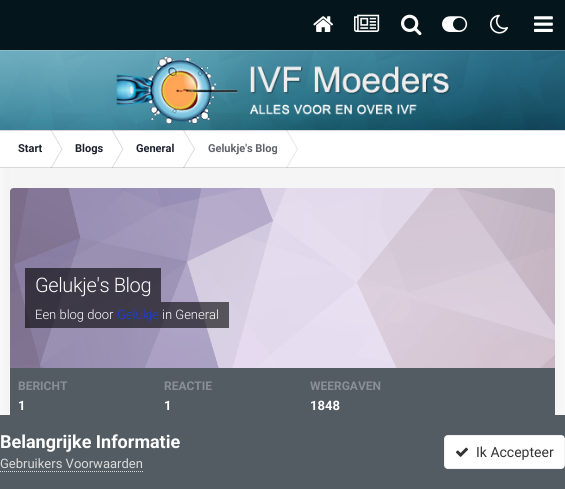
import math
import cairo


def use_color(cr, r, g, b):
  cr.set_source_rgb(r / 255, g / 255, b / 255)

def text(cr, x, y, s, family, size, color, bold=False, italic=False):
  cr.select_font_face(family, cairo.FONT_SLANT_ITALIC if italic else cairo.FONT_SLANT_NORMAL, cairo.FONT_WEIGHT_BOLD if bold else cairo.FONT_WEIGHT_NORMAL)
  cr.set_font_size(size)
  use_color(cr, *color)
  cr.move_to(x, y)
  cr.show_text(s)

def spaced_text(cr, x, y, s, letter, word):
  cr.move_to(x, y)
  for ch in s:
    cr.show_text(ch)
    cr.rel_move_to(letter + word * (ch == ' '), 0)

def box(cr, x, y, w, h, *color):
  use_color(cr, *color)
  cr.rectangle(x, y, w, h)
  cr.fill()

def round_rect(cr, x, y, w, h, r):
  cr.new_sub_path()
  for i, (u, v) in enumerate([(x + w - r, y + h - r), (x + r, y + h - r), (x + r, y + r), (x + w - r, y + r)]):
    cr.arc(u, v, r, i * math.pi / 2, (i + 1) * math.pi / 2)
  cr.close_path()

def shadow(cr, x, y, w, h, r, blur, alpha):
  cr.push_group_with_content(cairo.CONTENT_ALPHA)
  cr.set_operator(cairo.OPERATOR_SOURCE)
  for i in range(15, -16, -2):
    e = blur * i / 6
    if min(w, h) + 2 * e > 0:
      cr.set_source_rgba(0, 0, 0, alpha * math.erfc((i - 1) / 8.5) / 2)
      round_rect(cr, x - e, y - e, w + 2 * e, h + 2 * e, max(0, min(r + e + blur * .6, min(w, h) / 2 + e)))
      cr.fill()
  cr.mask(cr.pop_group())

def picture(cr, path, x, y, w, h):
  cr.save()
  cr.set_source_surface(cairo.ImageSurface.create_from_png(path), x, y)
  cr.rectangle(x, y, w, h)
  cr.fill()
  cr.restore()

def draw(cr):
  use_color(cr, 255, 255, 255)
  cr.paint()
  picture(cr, "img_07.png", 0, 50, 565, 80)
  cr.set_source_rgba(1, 1, 1, 0.2)
  cr.rectangle(0, 50, 565, 1)
  cr.fill()
  box(cr, 0, 0, 565, 50, 4, 22, 27)
  picture(cr, "img_01.png", 313, 16, 21, 16)
  picture(cr, "img_02.png", 354, 14, 26, 18)
  picture(cr, "img_03.png", 401, 14, 21, 22)
  picture(cr, "img_04.png", 442, 16, 26, 16)
  picture(cr, "img_05.png", 490, 14, 18, 20)
  picture(cr, "img_06.png", 534, 16, 19, 16)
  picture(cr, "img_08.png", 116, 56, 335, 68)
  use_color(cr, 0, 0, 0)
  shadow(cr, 0, 130, 565, 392, 3, 10, 0.06)
  box(cr, 9, 168, 547, 247, 245, 245, 245)
  box(cr, 0, 130, 565, 38, 255, 255, 255)
  use_color(cr, 216, 217, 217)
  cr.new_path()
  cr.move_to(50.5, 130)
  cr.line_to(51.5, 130)
  cr.line_to(62.5, 149)
  cr.line_to(61.5, 149)
  cr.close_path()
  cr.move_to(50.5, 168)
  cr.line_to(51.5, 168)
  cr.line_to(62.5, 149)
  cr.line_to(61.5, 149)
  cr.close_path()
  cr.fill()
  cr.new_path()
  cr.move_to(111.5, 130)
  cr.line_to(112.5, 130)
  cr.line_to(123.5, 149)
  cr.line_to(122.5, 149)
  cr.close_path()
  cr.move_to(111.5, 168)
  cr.line_to(112.5, 168)
  cr.line_to(123.5, 149)
  cr.line_to(122.5, 149)
  cr.close_path()
  cr.fill()
  cr.new_path()
  cr.move_to(183, 130)
  cr.line_to(184, 130)
  cr.line_to(195, 149)
  cr.line_to(194, 149)
  cr.close_path()
  cr.move_to(183, 168)
  cr.line_to(184, 168)
  cr.line_to(195, 149)
  cr.line_to(194, 149)
  cr.close_path()
  cr.fill()
  use_color(cr, 228, 228, 229)
  cr.new_path()
  cr.move_to(286, 130)
  cr.line_to(287, 130)
  cr.line_to(298, 149)
  cr.line_to(297, 149)
  cr.close_path()
  cr.move_to(286, 168)
  cr.line_to(287, 168)
  cr.line_to(298, 149)
  cr.line_to(297, 149)
  cr.close_path()
  cr.fill()
  cr.set_source_rgba(0.231, 0.251, 0.263, 0.2)
  cr.rectangle(0, 130, 565, 1)
  cr.fill()
  cr.rectangle(0, 167, 565, 1)
  cr.fill()
  use_color(cr, 206, 153, 255)
  cr.new_path()
  cr.move_to(14, 188)
  cr.line_to(551, 188)
  cr.curve_to(553, 188, 555, 190, 555, 192)
  cr.line_to(555, 368)
  cr.line_to(10, 368)
  cr.line_to(10, 192)
  cr.curve_to(10, 190, 12, 188, 14, 188)
  cr.close_path()
  cr.fill()
  picture(cr, "img_09.png", 10, 188, 545, 180)
  cr.set_source_rgba(0, 0, 0, 0.6)
  cr.rectangle(25, 268, 136, 34)
  cr.fill()
  cr.rectangle(25, 302, 204, 26)
  cr.fill()
  box(cr, 10, 368, 545, 47, 83, 92, 98)
  box(cr, 0, 415, 565, 74, 83, 92, 98)
  cr.new_path()
  cr.move_to(0, 471.5)
  cr.line_to(143, 471.5)
  use_color(cr, 218, 218, 218)
  cr.set_line_width(1)
  cr.set_dash([1, 1])
  cr.stroke()
  use_color(cr, 255, 255, 255)
  round_rect(cr, 444, 435, 121, 34, 4)
  cr.fill()
  round_rect(cr, 444.5, 435.5, 120, 33, 3.5)
  cr.set_source_rgba(0.2, 0.2, 0.2, 0.07)
  cr.set_dash([])
  cr.stroke()
  picture(cr, "img_10.png", 456, 447, 12, 10)
  text(cr, 18, 152, "Start", "Roboto", 11, (26, 32, 44), bold=True)
  text(cr, 75, 152, "Blogs", "Roboto", 11, (26, 32, 44), bold=True)
  text(cr, 136, 152, "General", "Roboto", 11, (26, 32, 44), bold=True)
  text(cr, 208, 152, "Gelukje's Blog", "Roboto", 11, (95, 99, 107), bold=True)
  cr.select_font_face("Roboto Light")
  cr.set_font_size(20)
  use_color(cr, 255, 255, 255)
  spaced_text(cr, 35, 292, "Gelukje's Blog", -0.4, 0)
  text(cr, 35, 319, "Een blog door", "Roboto Light", 13, (255, 255, 255))
  text(cr, 117, 319, "Gelukje", "Roboto Light", 13, (28, 61, 230))
  text(cr, 162, 319, "in General", "Roboto Light", 13, (255, 255, 255))
  text(cr, 18, 390, "BERICHT", "Roboto", 12, (137, 143, 151), bold=True)
  text(cr, 18, 410, "1", "Roboto", 13, (255, 255, 255), bold=True)
  text(cr, 164, 390, "REACTIE", "Roboto", 12, (137, 143, 151), bold=True)
  text(cr, 164, 410, "1", "Roboto", 13, (255, 255, 255), bold=True)
  text(cr, 310, 390, "WEERGAVEN", "Roboto", 12, (137, 143, 151), bold=True)
  text(cr, 310, 410, "1848", "Roboto", 13, (255, 255, 255), bold=True)
  text(cr, 0, 448, "Belangrijke Informatie", "Roboto", 18, (255, 255, 255), bold=True)
  text(cr, 0, 468, "Gebruikers Voorwaarden", "Roboto", 13, (218, 218, 218))
  text(cr, 476, 457, "Ik Accepteer", "Roboto", 14, (51, 51, 51))


surface = cairo.ImageSurface(cairo.FORMAT_RGB24, 565, 489)
cr = cairo.Context(surface)
options = cairo.FontOptions()
options.set_hint_metrics(cairo.HINT_METRICS_OFF)
options.set_hint_style(cairo.HINT_STYLE_NONE)
cr.set_font_options(options)
cr.set_miter_limit(4)
draw(cr)
surface.write_to_png("out.png")
